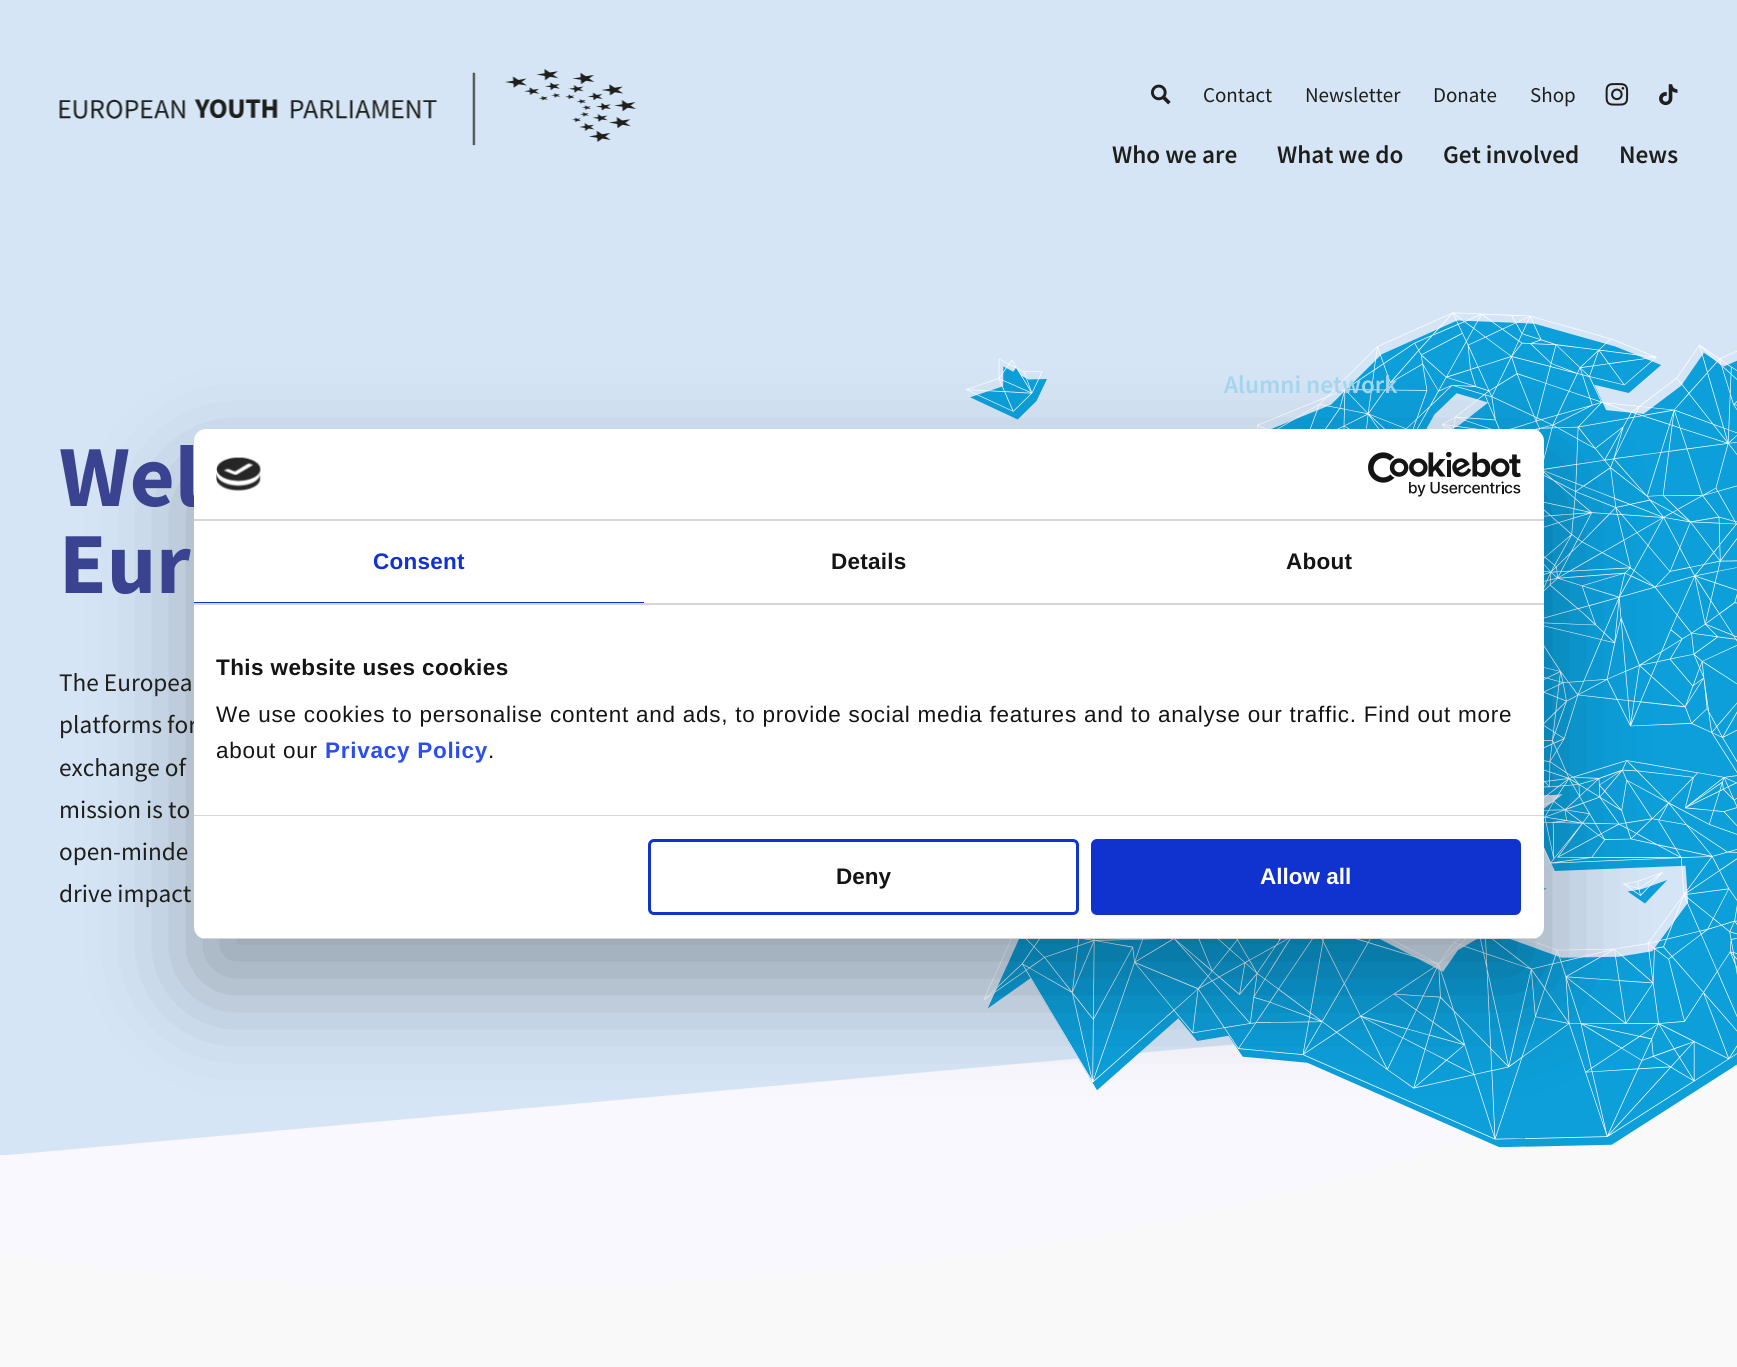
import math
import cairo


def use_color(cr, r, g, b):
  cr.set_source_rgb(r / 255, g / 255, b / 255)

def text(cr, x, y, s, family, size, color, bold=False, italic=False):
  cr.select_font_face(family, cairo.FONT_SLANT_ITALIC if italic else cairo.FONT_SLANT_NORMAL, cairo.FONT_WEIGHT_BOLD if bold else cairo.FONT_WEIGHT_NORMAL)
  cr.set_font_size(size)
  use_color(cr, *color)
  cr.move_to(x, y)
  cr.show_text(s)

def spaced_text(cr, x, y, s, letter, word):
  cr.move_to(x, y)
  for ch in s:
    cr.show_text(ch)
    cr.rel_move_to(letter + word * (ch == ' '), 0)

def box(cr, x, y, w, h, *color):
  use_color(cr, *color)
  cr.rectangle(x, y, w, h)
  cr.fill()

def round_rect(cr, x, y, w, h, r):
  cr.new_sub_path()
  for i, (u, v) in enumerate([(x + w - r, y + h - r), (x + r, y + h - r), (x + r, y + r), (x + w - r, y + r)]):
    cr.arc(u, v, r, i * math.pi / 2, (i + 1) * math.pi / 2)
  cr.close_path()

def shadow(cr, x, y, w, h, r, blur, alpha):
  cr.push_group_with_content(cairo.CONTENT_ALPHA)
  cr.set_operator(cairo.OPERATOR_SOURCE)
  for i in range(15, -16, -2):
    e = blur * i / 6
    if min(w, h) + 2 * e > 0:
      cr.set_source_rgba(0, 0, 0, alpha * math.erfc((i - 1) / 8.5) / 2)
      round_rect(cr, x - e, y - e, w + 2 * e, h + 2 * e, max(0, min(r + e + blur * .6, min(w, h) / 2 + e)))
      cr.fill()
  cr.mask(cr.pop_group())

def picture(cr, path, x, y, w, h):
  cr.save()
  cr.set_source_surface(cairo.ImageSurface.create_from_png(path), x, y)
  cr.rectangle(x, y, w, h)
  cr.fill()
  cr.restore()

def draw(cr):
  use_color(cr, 249, 249, 249)
  cr.paint()
  use_color(cr, 249, 248, 255)
  cr.new_path()
  cr.move_to(-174, 0)
  cr.line_to(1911, 0)
  cr.line_to(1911, 744)
  cr.curve_to(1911, 1043, 1272, 1286, 484, 1286)
  cr.curve_to(121, 1286, -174, 1240, -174, 1184)
  cr.close_path()
  cr.fill()
  use_color(cr, 213, 229, 246)
  cr.new_path()
  cr.move_to(0, 0)
  cr.line_to(0, 1155)
  cr.line_to(8, 1155)
  cr.line_to(1737, 999)
  cr.line_to(1737, 0)
  cr.close_path()
  cr.fill()
  picture(cr, "img_01.png", 59, 69, 577, 77)
  picture(cr, "img_02.png", 1151, 84, 20, 21)
  picture(cr, "img_03.png", 1605, 83, 24, 23)
  picture(cr, "img_04.png", 1659, 84, 19, 22)
  picture(cr, "img_05.png", 965, 312, 772, 836)
  use_color(cr, 0, 0, 0)
  shadow(cr, 194, 477, 1350, 510, 12, 51, 0.3)
  text(cr, 1203, 102, "Contact", "Source Sans Pro", 21, (30, 31, 28))
  text(cr, 1305, 102, "Newsletter", "Source Sans Pro", 21, (30, 31, 28))
  text(cr, 1433, 102, "Donate", "Source Sans Pro", 21, (30, 31, 28))
  text(cr, 1530, 102, "Shop", "Source Sans Pro", 21, (30, 31, 28))
  text(cr, 1112, 163, "Who we are", "Source Sans Pro SemiBold", 25.25, (30, 31, 28))
  text(cr, 1277, 163, "What we do", "Source Sans Pro SemiBold", 25.25, (30, 31, 28))
  text(cr, 1224, 393, "Alumni network", "Source Sans Pro SemiBold", 25.25, (164, 213, 239))
  text(cr, 1443, 163, "Get involved", "Source Sans Pro SemiBold", 25.25, (30, 31, 28))
  text(cr, 1619, 163, "News", "Source Sans Pro SemiBold", 25.25, (30, 31, 28))
  text(cr, 59, 506, "Wel", "Source Sans Pro", 87, (58, 67, 144), bold=True)
  text(cr, 59, 593, "Eur", "Source Sans Pro", 87, (58, 67, 144), bold=True)
  text(cr, 59, 691, "The Europea", "Source Sans Pro", 25.25, (30, 31, 28))
  text(cr, 59, 733, "platforms for", "Source Sans Pro", 25.25, (30, 31, 28))
  text(cr, 59, 776, "exchange of", "Source Sans Pro", 25.25, (30, 31, 28))
  text(cr, 59, 818, "mission is to", "Source Sans Pro", 25.25, (30, 31, 28))
  text(cr, 59, 860, "open-minde", "Source Sans Pro", 25.25, (30, 31, 28))
  text(cr, 59, 902, "drive impact", "Source Sans Pro", 25.25, (30, 31, 28))
  use_color(cr, 255, 255, 255)
  round_rect(cr, 194, 429, 1350, 510, 12)
  cr.fill()
  box(cr, 194, 519, 1350, 2, 214, 214, 214)
  picture(cr, "img_06.png", 216, 457, 45, 34)
  picture(cr, "img_07.png", 1368, 452, 153, 45)
  box(cr, 194, 603, 1350, 2, 214, 214, 214)
  box(cr, 194, 602, 450, 1, 16, 50, 207)
  cr.select_font_face("Liberation Sans", cairo.FONT_SLANT_NORMAL, cairo.FONT_WEIGHT_BOLD)
  cr.set_font_size(22.5)
  spaced_text(cr, 373, 569, "Consent", 0.25, 0)
  use_color(cr, 20, 20, 20)
  spaced_text(cr, 831, 569, "Details", 0.25, 0)
  spaced_text(cr, 1286, 569, "About", 0.25, 0)
  box(cr, 194, 815, 1350, 1, 214, 214, 214)
  use_color(cr, 20, 20, 20)
  spaced_text(cr, 216, 675, "This website uses cookies", 0.4, 0)
  cr.select_font_face("Liberation Sans")
  spaced_text(cr, 216, 722, "We use cookies to personalise content and ads, to provide social media features and to analyse our traffic. Find out more", 0.75, 0)
  spaced_text(cr, 216, 758, "about our", 0.75, 0)
  cr.select_font_face("Liberation Sans", cairo.FONT_SLANT_NORMAL, cairo.FONT_WEIGHT_BOLD)
  use_color(cr, 42, 78, 239)
  spaced_text(cr, 325, 758, "Privacy Policy", 0.75, 0)
  cr.select_font_face("Liberation Sans")
  use_color(cr, 20, 20, 20)
  spaced_text(cr, 488, 758, ".", 0.75, 0)
  cr.save()
  round_rect(cr, 194, 429, 1350, 510, 12)
  cr.clip()
  box(cr, 194, 938, 1350, 1, 214, 214, 214)
  cr.restore()
  round_rect(cr, 649.5, 840.5, 428, 73, 4.5)
  use_color(cr, 16, 50, 207)
  cr.set_line_width(3)
  cr.stroke()
  text(cr, 836, 884, "Deny", "Liberation Sans", 22.5, (20, 20, 20), bold=True)
  use_color(cr, 16, 50, 207)
  round_rect(cr, 1092.5, 840.5, 427, 73, 4.5)
  cr.fill_preserve()
  cr.stroke()
  text(cr, 1260, 884, "Allow all", "Liberation Sans", 22.5, (255, 255, 255), bold=True)


surface = cairo.ImageSurface(cairo.FORMAT_RGB24, 1737, 1367)
cr = cairo.Context(surface)
options = cairo.FontOptions()
options.set_hint_metrics(cairo.HINT_METRICS_OFF)
options.set_hint_style(cairo.HINT_STYLE_NONE)
cr.set_font_options(options)
cr.set_miter_limit(4)
draw(cr)
surface.write_to_png("out.png")
